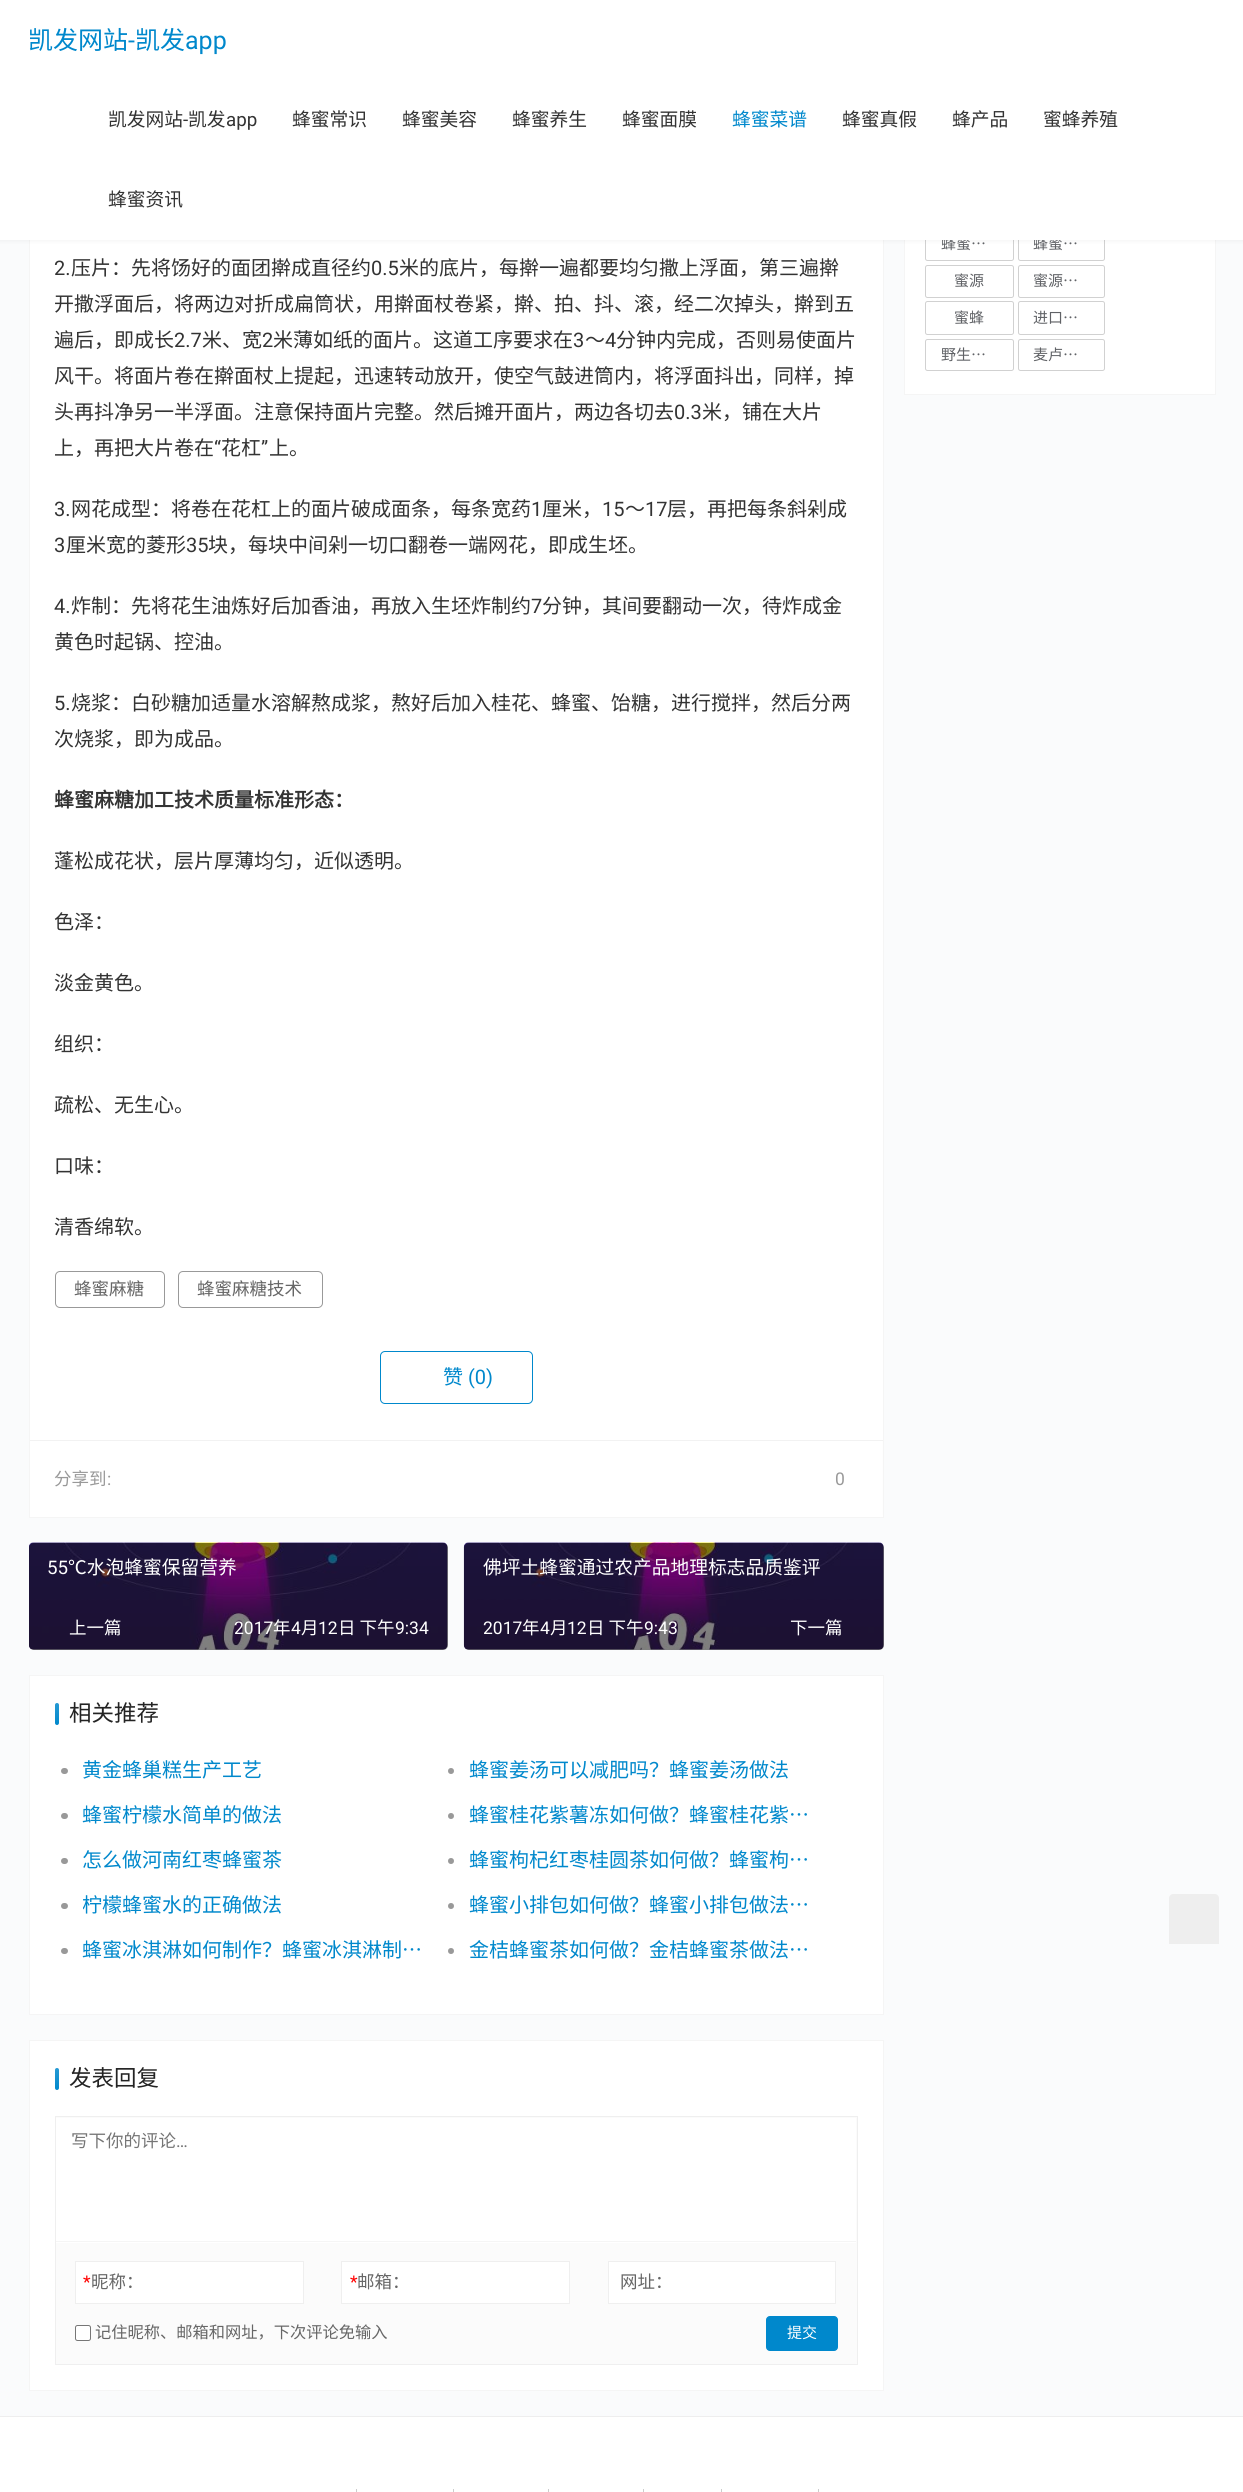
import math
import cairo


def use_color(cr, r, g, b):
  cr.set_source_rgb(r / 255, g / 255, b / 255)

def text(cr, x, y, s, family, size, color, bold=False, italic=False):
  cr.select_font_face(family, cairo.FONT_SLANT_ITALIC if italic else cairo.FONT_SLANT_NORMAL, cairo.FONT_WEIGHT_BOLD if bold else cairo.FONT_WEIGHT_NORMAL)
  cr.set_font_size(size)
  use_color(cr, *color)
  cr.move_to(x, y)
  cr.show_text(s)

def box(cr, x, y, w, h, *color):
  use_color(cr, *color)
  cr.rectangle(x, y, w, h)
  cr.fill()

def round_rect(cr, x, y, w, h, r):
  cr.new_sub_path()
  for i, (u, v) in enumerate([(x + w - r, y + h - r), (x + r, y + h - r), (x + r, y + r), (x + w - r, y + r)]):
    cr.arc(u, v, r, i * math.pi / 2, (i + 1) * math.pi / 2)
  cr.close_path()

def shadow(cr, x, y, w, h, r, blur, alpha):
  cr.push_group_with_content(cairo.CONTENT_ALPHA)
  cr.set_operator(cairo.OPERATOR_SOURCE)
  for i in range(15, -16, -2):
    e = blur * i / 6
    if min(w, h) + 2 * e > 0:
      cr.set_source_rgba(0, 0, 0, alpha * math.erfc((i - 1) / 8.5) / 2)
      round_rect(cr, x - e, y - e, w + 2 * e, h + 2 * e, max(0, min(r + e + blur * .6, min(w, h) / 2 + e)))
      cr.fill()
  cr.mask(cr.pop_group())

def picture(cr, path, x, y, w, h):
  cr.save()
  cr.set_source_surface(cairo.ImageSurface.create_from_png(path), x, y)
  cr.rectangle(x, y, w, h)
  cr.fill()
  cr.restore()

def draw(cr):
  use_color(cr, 250, 251, 252)
  cr.paint()
  box(cr, 30, 240, 853, 1277, 255, 255, 255)
  cr.rectangle(29.5, -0.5, 854, 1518)
  use_color(cr, 245, 245, 245)
  cr.set_line_width(1)
  cr.stroke()
  box(cr, 905, 240, 310, 154, 255, 255, 255)
  cr.rectangle(904.5, -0.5, 311, 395)
  use_color(cr, 245, 245, 245)
  cr.stroke()
  round_rect(cr, 925.5, 228.5, 88, 32, 2)
  use_color(cr, 209, 209, 209)
  cr.stroke()
  round_rect(cr, 1018.5, 228.5, 86, 32, 2)
  cr.stroke()
  use_color(cr, 0, 0, 0)
  shadow(cr, -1, -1, 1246, 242, 0, 2, 0.05)
  round_rect(cr, 55.5, 1271.5, 109, 36, 4.5)
  use_color(cr, 153, 153, 153)
  cr.stroke()
  round_rect(cr, 178.5, 1271.5, 144, 36, 4.5)
  cr.stroke()
  round_rect(cr, 380.5, 1351.5, 152, 52, 4.5)
  use_color(cr, 0, 136, 204)
  cr.stroke()
  use_color(cr, 242, 242, 242)
  cr.new_path()
  cr.move_to(30, 1440)
  cr.line_to(30, 1441)
  cr.line_to(882, 1441)
  cr.line_to(882, 1515)
  cr.line_to(883, 1515)
  cr.line_to(883, 1440)
  cr.close_path()
  cr.fill()
  cr.set_source_rgba(1, 1, 1, 0.92)
  cr.rectangle(882, 1441, 1, 74)
  cr.fill()
  picture(cr, "img_01.png", 29, 1542, 419, 108)
  cr.set_source_rgba(0, 0, 0, 0.5)
  round_rect(cr, 29, 1543, 419, 107, 5)
  cr.fill()
  picture(cr, "img_02.png", 463, 1542, 421, 108)
  round_rect(cr, 464, 1543, 420, 107, 5)
  cr.fill()
  use_color(cr, 255, 255, 255)
  cr.rectangle(29.5, 1675.5, 854, 339)
  cr.fill_preserve()
  use_color(cr, 245, 245, 245)
  cr.stroke()
  use_color(cr, 0, 136, 204)
  round_rect(cr, 55, 1703, 4, 22, 2)
  cr.fill()
  gradient = cairo.LinearGradient(57, 1703, 57, 1725)
  gradient.add_color_stop_rgba(0, 1, 1, 1, 0.15)
  gradient.add_color_stop_rgba(1, 1, 1, 1, 0)
  cr.set_source(gradient)
  round_rect(cr, 55, 1703, 4, 22, 2)
  cr.fill()
  use_color(cr, 153, 153, 153)
  round_rect(cr, 61, 1768, 7, 6, 3)
  cr.fill()
  cr.arc(451, 1771, 3, 0, 2 * math.pi)
  cr.fill()
  round_rect(cr, 61, 1813, 7, 6, 3)
  cr.fill()
  cr.arc(451, 1816, 3, 0, 2 * math.pi)
  cr.fill()
  round_rect(cr, 61, 1858, 7, 6, 3)
  cr.fill()
  cr.arc(451, 1861, 3, 0, 2 * math.pi)
  cr.fill()
  round_rect(cr, 61, 1903, 7, 6, 3)
  cr.fill()
  cr.arc(451, 1906, 3, 0, 2 * math.pi)
  cr.fill()
  round_rect(cr, 61, 1948, 7, 6, 3)
  cr.fill()
  cr.arc(451, 1951, 3, 0, 2 * math.pi)
  cr.fill()
  use_color(cr, 255, 255, 255)
  cr.rectangle(29.5, 2040.5, 854, 350)
  cr.fill_preserve()
  use_color(cr, 245, 245, 245)
  cr.stroke()
  use_color(cr, 0, 136, 204)
  round_rect(cr, 55, 2068, 4, 22, 2)
  cr.fill()
  gradient = cairo.LinearGradient(57, 2068, 57, 2090)
  gradient.add_color_stop_rgba(0, 1, 1, 1, 0.15)
  gradient.add_color_stop_rgba(1, 1, 1, 1, 0)
  cr.set_source(gradient)
  round_rect(cr, 55, 2068, 4, 22, 2)
  cr.fill()
  use_color(cr, 251, 251, 251)
  cr.rectangle(55.5, 2116.5, 802, 248)
  cr.fill_preserve()
  use_color(cr, 239, 239, 239)
  cr.stroke()
  box(cr, 56, 2118, 800, 125, 255, 255, 255)
  box(cr, 56, 2241, 800, 1, 245, 245, 245)
  use_color(cr, 255, 255, 255)
  cr.rectangle(75.5, 2261.5, 228, 42)
  cr.fill_preserve()
  use_color(cr, 239, 239, 239)
  cr.stroke()
  use_color(cr, 255, 255, 255)
  cr.rectangle(341.5, 2261.5, 228, 42)
  cr.fill_preserve()
  use_color(cr, 239, 239, 239)
  cr.stroke()
  use_color(cr, 255, 255, 255)
  cr.rectangle(608.5, 2261.5, 227, 42)
  cr.fill_preserve()
  use_color(cr, 239, 239, 239)
  cr.stroke()
  use_color(cr, 255, 255, 255)
  round_rect(cr, 75.5, 2325.5, 15, 15, 2)
  cr.fill_preserve()
  use_color(cr, 118, 118, 118)
  cr.stroke()
  use_color(cr, 0, 136, 204)
  round_rect(cr, 766.5, 2316.5, 71, 34, 3.5)
  cr.fill_preserve()
  cr.stroke()
  round_rect(cr, 925.5, 265.5, 88, 32, 2)
  use_color(cr, 209, 209, 209)
  cr.stroke()
  round_rect(cr, 1018.5, 265.5, 86, 32, 2)
  cr.stroke()
  round_rect(cr, 925.5, 301.5, 88, 33, 2)
  cr.stroke()
  round_rect(cr, 1018.5, 301.5, 86, 33, 2)
  cr.stroke()
  round_rect(cr, 925.5, 339.5, 88, 31, 2)
  cr.stroke()
  round_rect(cr, 1018.5, 339.5, 86, 31, 2)
  cr.stroke()
  use_color(cr, 238, 238, 238)
  cr.new_path()
  cr.move_to(1173, 1894)
  cr.line_to(1215, 1894)
  cr.curve_to(1217, 1894, 1219, 1896, 1219, 1898)
  cr.line_to(1219, 1944)
  cr.line_to(1169, 1944)
  cr.line_to(1169, 1898)
  cr.curve_to(1169, 1896, 1171, 1894, 1173, 1894)
  cr.close_path()
  cr.fill()
  box(cr, 0, 2417, 1243, 75, 255, 255, 255)
  box(cr, 0, 2416, 1243, 1, 238, 238, 238)
  box(cr, 356, 2489, 1, 3, 204, 204, 204)
  box(cr, 453, 2489, 1, 3, 204, 204, 204)
  box(cr, 548, 2489, 1, 3, 204, 204, 204)
  box(cr, 643, 2489, 1, 3, 204, 204, 204)
  box(cr, 721, 2489, 1, 3, 204, 204, 204)
  box(cr, 818, 2489, 1, 3, 204, 204, 204)
  text(cr, 54, 275, "2.", "Roboto", 20, (51, 51, 51))
  text(cr, 71, 275, "压片：先将饧好的面团擀成直径约", "Noto Sans CJK SC", 20, (51, 51, 51))
  text(cr, 371, 275, "0.5", "Roboto", 20, (51, 51, 51))
  text(cr, 399, 275, "米的底片，每擀一遍都要均匀撒上浮面，第三遍擀", "Noto Sans CJK SC", 20, (51, 51, 51))
  text(cr, 54, 311, "开撒浮面后，将两边对折成扁筒状，用擀面杖卷紧，擀、拍、抖、滚，经二次掉头，擀到五", "Noto Sans CJK SC", 20, (51, 51, 51))
  text(cr, 54, 347, "遍后，即成长", "Noto Sans CJK SC", 20, (51, 51, 51))
  text(cr, 174, 347, "2.7", "Roboto", 20, (51, 51, 51))
  text(cr, 202, 347, "米、宽", "Noto Sans CJK SC", 20, (51, 51, 51))
  text(cr, 262, 347, "2", "Roboto", 20, (51, 51, 51))
  text(cr, 273, 347, "米薄如纸的面片。这道工序要求在", "Noto Sans CJK SC", 20, (51, 51, 51))
  text(cr, 573, 347, "3", "Roboto", 20, (51, 51, 51))
  text(cr, 585, 347, "～", "Noto Sans CJK SC", 20, (51, 51, 51))
  text(cr, 605, 347, "4", "Roboto", 20, (51, 51, 51))
  text(cr, 616, 347, "分钟内完成，否则易使面片", "Noto Sans CJK SC", 20, (51, 51, 51))
  text(cr, 54, 383, "风干。将面片卷在擀面杖上提起，迅速转动放开，使空气鼓进筒内，将浮面抖出，同样，掉", "Noto Sans CJK SC", 20, (51, 51, 51))
  text(cr, 54, 419, "头再抖净另一半浮面。注意保持面片完整。然后摊开面片，两边各切去", "Noto Sans CJK SC", 20, (51, 51, 51))
  text(cr, 674, 419, "0.3", "Roboto", 20, (51, 51, 51))
  text(cr, 702, 419, "米，铺在大片", "Noto Sans CJK SC", 20, (51, 51, 51))
  text(cr, 54, 455, "上，再把大片卷在", "Noto Sans CJK SC", 20, (51, 51, 51))
  text(cr, 214, 455, "“", "Roboto", 20, (51, 51, 51))
  text(cr, 221, 455, "花杠", "Noto Sans CJK SC", 20, (51, 51, 51))
  text(cr, 261, 455, "”", "Roboto", 20, (51, 51, 51))
  text(cr, 269, 455, "上。", "Noto Sans CJK SC", 20, (51, 51, 51))
  text(cr, 54, 516, "3.", "Roboto", 20, (51, 51, 51))
  text(cr, 71, 516, "网花成型：将卷在花杠上的面片破成面条，每条宽药", "Noto Sans CJK SC", 20, (51, 51, 51))
  text(cr, 531, 516, "1", "Roboto", 20, (51, 51, 51))
  text(cr, 542, 516, "厘米，", "Noto Sans CJK SC", 20, (51, 51, 51))
  text(cr, 602, 516, "15", "Roboto", 20, (51, 51, 51))
  text(cr, 625, 516, "～", "Noto Sans CJK SC", 20, (51, 51, 51))
  text(cr, 645, 516, "17", "Roboto", 20, (51, 51, 51))
  text(cr, 667, 516, "层，再把每条斜剁成", "Noto Sans CJK SC", 20, (51, 51, 51))
  text(cr, 54, 552, "3", "Roboto", 20, (51, 51, 51))
  text(cr, 66, 552, "厘米宽的菱形", "Noto Sans CJK SC", 20, (51, 51, 51))
  text(cr, 186, 552, "35", "Roboto", 20, (51, 51, 51))
  text(cr, 208, 552, "块，每块中间剁一切口翻卷一端网花，即成生坯。", "Noto Sans CJK SC", 20, (51, 51, 51))
  text(cr, 54, 613, "4.", "Roboto", 20, (51, 51, 51))
  text(cr, 71, 613, "炸制：先将花生油炼好后加香油，再放入生坯炸制约", "Noto Sans CJK SC", 20, (51, 51, 51))
  text(cr, 531, 613, "7", "Roboto", 20, (51, 51, 51))
  text(cr, 542, 613, "分钟，其间要翻动一次，待炸成金", "Noto Sans CJK SC", 20, (51, 51, 51))
  text(cr, 54, 649, "黄色时起锅、控油。", "Noto Sans CJK SC", 20, (51, 51, 51))
  text(cr, 54, 710, "5.", "Roboto", 20, (51, 51, 51))
  text(cr, 71, 710, "烧浆：白砂糖加适量水溶解熬成浆，熬好后加入桂花、蜂蜜、饴糖，进行搅拌，然后分两", "Noto Sans CJK SC", 20, (51, 51, 51))
  text(cr, 54, 746, "次烧浆，即为成品。", "Noto Sans CJK SC", 20, (51, 51, 51))
  text(cr, 54, 807, "蜂蜜麻糖加工技术质量标准形态：", "Noto Sans CJK SC", 20, (51, 51, 51), bold=True)
  text(cr, 54, 868, "蓬松成花状，层片厚薄均匀，近似透明。", "Noto Sans CJK SC", 20, (51, 51, 51))
  text(cr, 54, 929, "色泽：", "Noto Sans CJK SC", 20, (51, 51, 51))
  text(cr, 54, 990, "淡金黄色。", "Noto Sans CJK SC", 20, (51, 51, 51))
  text(cr, 54, 1051, "组织：", "Noto Sans CJK SC", 20, (51, 51, 51))
  text(cr, 54, 1112, "疏松、无生心。", "Noto Sans CJK SC", 20, (51, 51, 51))
  text(cr, 54, 1173, "口味：", "Noto Sans CJK SC", 20, (51, 51, 51))
  text(cr, 54, 1234, "清香绵软。", "Noto Sans CJK SC", 20, (51, 51, 51))
  text(cr, 74, 1295, "蜂蜜麻糖", "Noto Sans CJK SC", 17.5, (102, 102, 102))
  text(cr, 197, 1295, "蜂蜜麻糖技术", "Noto Sans CJK SC", 17.5, (102, 102, 102))
  text(cr, 443, 1384, "赞", "Noto Sans CJK SC", 20, (0, 136, 204))
  text(cr, 468, 1384, "(0)", "Roboto", 20, (0, 136, 204))
  text(cr, 54, 1485, "分享到", "Noto Sans CJK SC", 17.5, (153, 153, 153))
  text(cr, 107, 1485, ":", "Roboto", 17.5, (153, 153, 153))
  text(cr, 835, 1485, "0", "Roboto", 17.5, (153, 153, 153))
  text(cr, 47, 1574, "55", "Roboto", 18.75, (255, 255, 255))
  text(cr, 68, 1574, "℃水泡蜂蜜保留营养", "Noto Sans CJK SC", 18.75, (255, 255, 255))
  text(cr, 69, 1634, "上一篇", "Noto Sans CJK SC", 17.5, (255, 255, 255))
  text(cr, 234, 1634, "2017", "Roboto", 17.5, (255, 255, 255))
  text(cr, 273, 1634, "年", "Noto Sans CJK SC", 17.5, (255, 255, 255))
  text(cr, 291, 1634, "4", "Roboto", 17.5, (255, 255, 255))
  text(cr, 301, 1634, "月", "Noto Sans CJK SC", 17.5, (255, 255, 255))
  text(cr, 318, 1634, "12", "Roboto", 17.5, (255, 255, 255))
  text(cr, 338, 1634, "日 下午", "Noto Sans CJK SC", 17.5, (255, 255, 255))
  text(cr, 395, 1634, "9:34", "Roboto", 17.5, (255, 255, 255))
  text(cr, 483, 1574, "佛坪土蜂蜜通过农产品地理标志品质鉴评", "Noto Sans CJK SC", 18.75, (255, 255, 255))
  text(cr, 483, 1634, "2017", "Roboto", 17.5, (255, 255, 255))
  text(cr, 522, 1634, "年", "Noto Sans CJK SC", 17.5, (255, 255, 255))
  text(cr, 540, 1634, "4", "Roboto", 17.5, (255, 255, 255))
  text(cr, 550, 1634, "月", "Noto Sans CJK SC", 17.5, (255, 255, 255))
  text(cr, 567, 1634, "12", "Roboto", 17.5, (255, 255, 255))
  text(cr, 587, 1634, "日 下午", "Noto Sans CJK SC", 17.5, (255, 255, 255))
  text(cr, 644, 1634, "9:43", "Roboto", 17.5, (255, 255, 255))
  text(cr, 790, 1634, "下一篇", "Noto Sans CJK SC", 17.5, (255, 255, 255))
  text(cr, 69, 1721, "相关推荐", "Noto Sans CJK SC", 22.5, (35, 35, 35))
  text(cr, 82, 1777, "黄金蜂巢糕生产工艺", "Noto Sans CJK SC", 20, (0, 136, 204))
  text(cr, 469, 1777, "蜂蜜姜汤可以减肥吗？蜂蜜姜汤做法", "Noto Sans CJK SC", 20, (0, 136, 204))
  text(cr, 82, 1822, "蜂蜜柠檬水简单的做法", "Noto Sans CJK SC", 20, (0, 136, 204))
  text(cr, 469, 1822, "蜂蜜桂花紫薯冻如何做？蜂蜜桂花紫…", "Noto Sans CJK SC", 20, (0, 136, 204))
  text(cr, 82, 1867, "怎么做河南红枣蜂蜜茶", "Noto Sans CJK SC", 20, (0, 136, 204))
  text(cr, 469, 1867, "蜂蜜枸杞红枣桂圆茶如何做？蜂蜜枸…", "Noto Sans CJK SC", 20, (0, 136, 204))
  cr.save()
  cr.rectangle(83, 1886, 200, 40)
  cr.clip()
  text(cr, 82, 1912, "柠檬蜂蜜水的正确做法", "Noto Sans CJK SC", 20, (0, 136, 204))
  cr.restore()
  text(cr, 469, 1912, "蜂蜜小排包如何做？蜂蜜小排包做法…", "Noto Sans CJK SC", 20, (0, 136, 204))
  text(cr, 82, 1957, "蜂蜜冰淇淋如何制作？蜂蜜冰淇淋制…", "Noto Sans CJK SC", 20, (0, 136, 204))
  text(cr, 469, 1957, "金桔蜂蜜茶如何做？金桔蜂蜜茶做法…", "Noto Sans CJK SC", 20, (0, 136, 204))
  text(cr, 69, 2086, "发表回复", "Noto Sans CJK SC", 22.5, (35, 35, 35))
  text(cr, 71, 2147, "写下你的评论", "Noto Sans CJK SC", 17.5, (117, 117, 117))
  text(cr, 176, 2147, "…", "Roboto", 17.5, (117, 117, 117))
  text(cr, 83, 2288, "*", "Roboto", 17.5, (255, 0, 0))
  text(cr, 91, 2288, "昵称：", "Noto Sans CJK SC", 17.5, (102, 102, 102))
  text(cr, 350, 2288, "*", "Roboto", 17.5, (255, 0, 0))
  text(cr, 357, 2288, "邮箱：", "Noto Sans CJK SC", 17.5, (102, 102, 102))
  text(cr, 620, 2288, "网址：", "Noto Sans CJK SC", 17.5, (102, 102, 102))
  text(cr, 95, 2338, "记住昵称、邮箱和网址，下次评论免输入", "Noto Sans CJK SC", 16.25, (102, 102, 102))
  text(cr, 787, 2338, "提交", "Noto Sans CJK SC", 15, (255, 255, 255))
  text(cr, 941, 249, "蜂蜜…", "Noto Sans CJK SC", 15, (96, 98, 102))
  text(cr, 1033, 249, "蜂蜜…", "Noto Sans CJK SC", 15, (96, 98, 102))
  box(cr, 0, 0, 1243, 240, 255, 255, 255)
  text(cr, 108, 206, "蜂蜜资讯", "Noto Sans CJK SC", 18.75, (51, 51, 51))
  text(cr, 1043, 126, "蜜蜂养殖", "Noto Sans CJK SC", 18.75, (51, 51, 51))
  text(cr, 952, 126, "蜂产品", "Noto Sans CJK SC", 18.75, (51, 51, 51))
  text(cr, 842, 126, "蜂蜜真假", "Noto Sans CJK SC", 18.75, (51, 51, 51))
  text(cr, 732, 126, "蜂蜜菜谱", "Noto Sans CJK SC", 18.75, (0, 136, 204))
  text(cr, 622, 126, "蜂蜜面膜", "Noto Sans CJK SC", 18.75, (51, 51, 51))
  text(cr, 512, 126, "蜂蜜养生", "Noto Sans CJK SC", 18.75, (51, 51, 51))
  text(cr, 402, 126, "蜂蜜美容", "Noto Sans CJK SC", 18.75, (51, 51, 51))
  text(cr, 292, 126, "蜂蜜常识", "Noto Sans CJK SC", 18.75, (51, 51, 51))
  text(cr, 226, 126, "app", "Roboto", 18.75, (51, 51, 51))
  text(cr, 188, 126, "凯发", "Noto Sans CJK SC", 18.75, (51, 51, 51))
  text(cr, 183, 126, "-", "Roboto", 18.75, (51, 51, 51))
  text(cr, 108, 126, "凯发网站", "Noto Sans CJK SC", 18.75, (51, 51, 51))
  text(cr, 185, 49, "app", "Roboto", 25, (0, 136, 204))
  text(cr, 135, 49, "凯发", "Noto Sans CJK SC", 25, (0, 136, 204))
  text(cr, 128, 49, "-", "Roboto", 25, (0, 136, 204))
  text(cr, 28, 49, "凯发网站", "Noto Sans CJK SC", 25, (0, 136, 204))
  text(cr, 954, 286, "蜜源", "Noto Sans CJK SC", 15, (96, 98, 102))
  text(cr, 1033, 286, "蜜源…", "Noto Sans CJK SC", 15, (96, 98, 102))
  text(cr, 954, 323, "蜜蜂", "Noto Sans CJK SC", 15, (96, 98, 102))
  text(cr, 1033, 323, "进口…", "Noto Sans CJK SC", 15, (96, 98, 102))
  text(cr, 941, 360, "野生…", "Noto Sans CJK SC", 15, (96, 98, 102))
  text(cr, 1033, 360, "麦卢…", "Noto Sans CJK SC", 15, (96, 98, 102))


surface = cairo.ImageSurface(cairo.FORMAT_RGB24, 1243, 2492)
cr = cairo.Context(surface)
options = cairo.FontOptions()
options.set_hint_metrics(cairo.HINT_METRICS_OFF)
options.set_hint_style(cairo.HINT_STYLE_NONE)
cr.set_font_options(options)
cr.set_miter_limit(4)
draw(cr)
surface.write_to_png("out.png")
